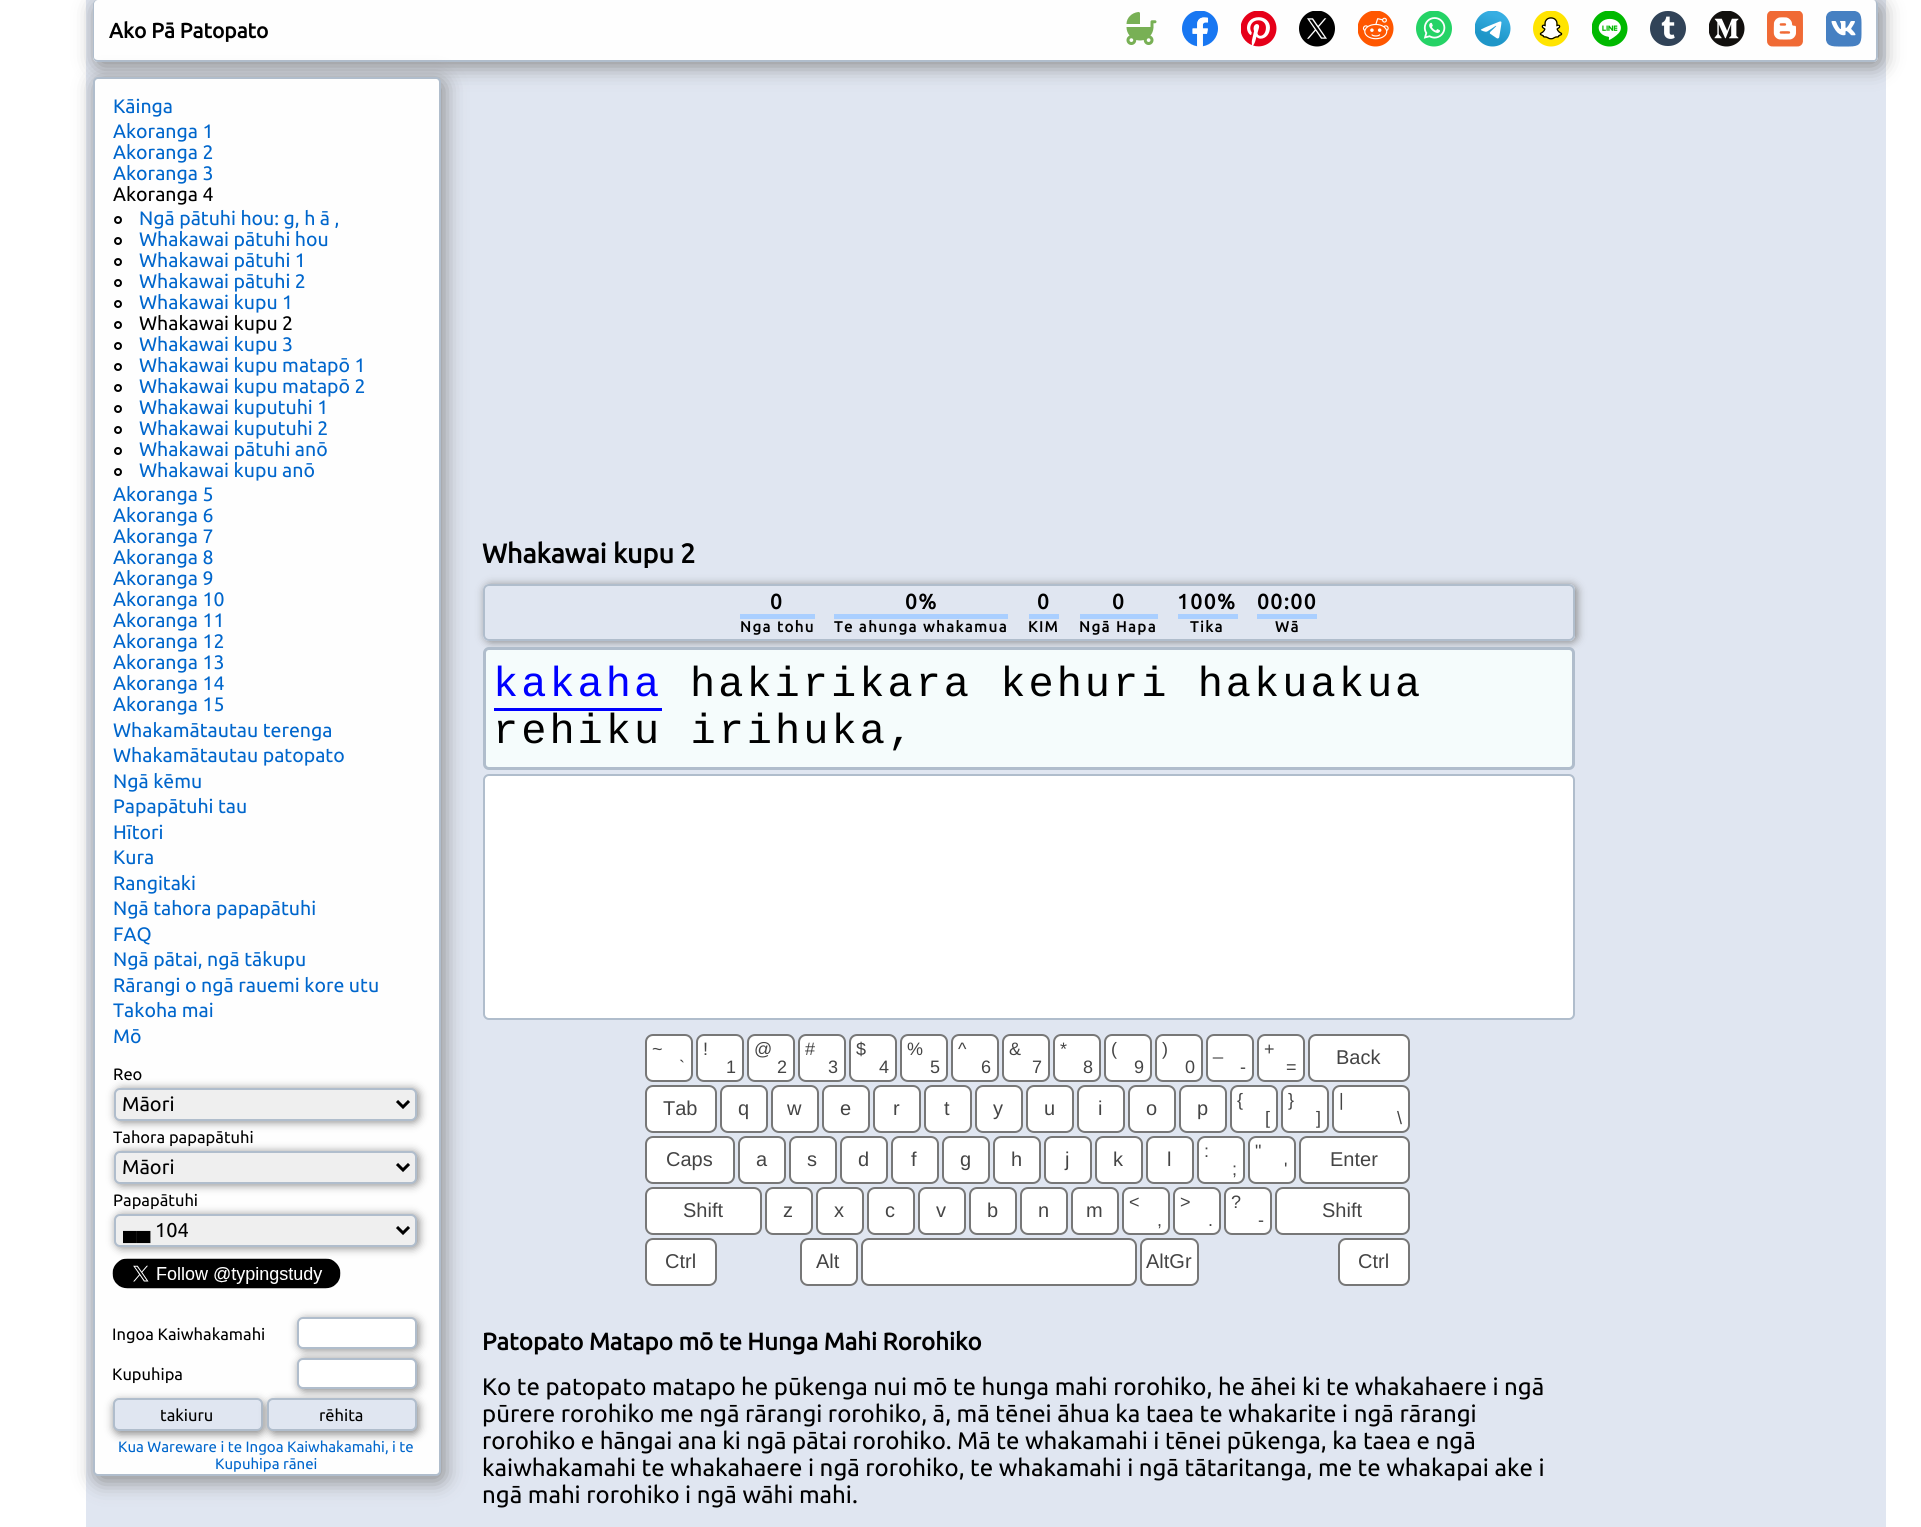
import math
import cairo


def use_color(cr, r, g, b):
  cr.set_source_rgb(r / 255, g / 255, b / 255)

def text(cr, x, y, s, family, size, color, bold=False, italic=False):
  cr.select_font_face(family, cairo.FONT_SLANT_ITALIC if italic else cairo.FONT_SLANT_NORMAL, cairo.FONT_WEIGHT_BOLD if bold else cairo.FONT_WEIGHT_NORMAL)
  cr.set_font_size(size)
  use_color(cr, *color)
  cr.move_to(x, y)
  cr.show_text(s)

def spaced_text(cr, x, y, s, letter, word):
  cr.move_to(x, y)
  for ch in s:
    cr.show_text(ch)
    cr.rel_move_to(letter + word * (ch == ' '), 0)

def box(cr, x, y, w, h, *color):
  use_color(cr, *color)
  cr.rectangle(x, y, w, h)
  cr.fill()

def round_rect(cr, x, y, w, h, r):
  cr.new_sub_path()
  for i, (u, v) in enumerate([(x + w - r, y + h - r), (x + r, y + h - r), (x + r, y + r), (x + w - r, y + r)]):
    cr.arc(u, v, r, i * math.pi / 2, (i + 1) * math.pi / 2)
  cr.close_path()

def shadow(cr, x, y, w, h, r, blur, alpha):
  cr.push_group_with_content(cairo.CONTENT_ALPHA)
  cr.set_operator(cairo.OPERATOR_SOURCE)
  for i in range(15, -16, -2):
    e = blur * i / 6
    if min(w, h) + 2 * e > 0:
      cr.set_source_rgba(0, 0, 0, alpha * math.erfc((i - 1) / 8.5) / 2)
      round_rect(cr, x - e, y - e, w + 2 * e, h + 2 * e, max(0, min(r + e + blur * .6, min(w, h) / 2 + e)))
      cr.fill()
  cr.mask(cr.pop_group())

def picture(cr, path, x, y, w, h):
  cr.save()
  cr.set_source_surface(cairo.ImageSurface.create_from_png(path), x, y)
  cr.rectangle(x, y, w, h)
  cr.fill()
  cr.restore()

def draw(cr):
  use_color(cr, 255, 255, 255)
  cr.paint()
  box(cr, 86, 0, 1800, 1527, 224, 230, 241)
  use_color(cr, 136, 136, 136)
  shadow(cr, 96, 5, 1785, 61, 5, 10.5, 1)
  use_color(cr, 254, 254, 254)
  round_rect(cr, 93, 0, 1785, 62, 5)
  cr.fill()
  use_color(cr, 176, 189, 204)
  cr.set_fill_rule(cairo.FILL_RULE_EVEN_ODD)
  cr.new_path()
  cr.move_to(98, 0)
  cr.line_to(1874, 0)
  cr.curve_to(1876, 0, 1878, 2, 1878, 4)
  cr.line_to(1878, 57)
  cr.curve_to(1878, 59, 1876, 62, 1874, 62)
  cr.line_to(98, 62)
  cr.curve_to(95, 62, 93, 59, 93, 57)
  cr.line_to(93, 4)
  cr.curve_to(93, 2, 95, 0, 98, 0)
  cr.close_path()
  cr.move_to(98, 0)
  cr.line_to(1874, 0)
  cr.curve_to(1875, 0, 1876, 2, 1876, 4)
  cr.line_to(1876, 57)
  cr.curve_to(1876, 59, 1875, 60, 1874, 60)
  cr.line_to(98, 60)
  cr.curve_to(96, 60, 94, 59, 94, 57)
  cr.line_to(94, 4)
  cr.curve_to(94, 2, 96, 0, 98, 0)
  cr.close_path()
  cr.fill()
  picture(cr, "img_01.png", 1126, 12, 31, 33)
  picture(cr, "img_02.png", 1182, 11, 36, 36)
  picture(cr, "img_03.png", 1241, 11, 36, 36)
  picture(cr, "img_04.png", 1299, 11, 36, 36)
  picture(cr, "img_05.png", 1358, 11, 36, 36)
  picture(cr, "img_06.png", 1416, 11, 36, 36)
  picture(cr, "img_07.png", 1475, 11, 36, 36)
  picture(cr, "img_08.png", 1533, 11, 36, 36)
  picture(cr, "img_09.png", 1592, 11, 36, 36)
  picture(cr, "img_10.png", 1650, 11, 36, 35)
  picture(cr, "img_11.png", 1709, 11, 36, 36)
  picture(cr, "img_12.png", 1767, 11, 36, 36)
  picture(cr, "img_13.png", 1826, 11, 36, 36)
  use_color(cr, 136, 136, 136)
  shadow(cr, 96, 81, 348, 1400, 5, 10.5, 1)
  use_color(cr, 254, 254, 254)
  round_rect(cr, 94, 78, 346, 1397, 4)
  cr.fill_preserve()
  use_color(cr, 176, 189, 204)
  cr.stroke()
  cr.arc(118, 220, 3, 0, 2 * math.pi)
  use_color(cr, 0, 0, 0)
  cr.stroke()
  cr.arc(118, 241, 3, 0, 2 * math.pi)
  cr.stroke()
  cr.arc(118, 262, 3, 0, 2 * math.pi)
  cr.stroke()
  cr.arc(118, 283, 3, 0, 2 * math.pi)
  cr.stroke()
  cr.arc(118, 304, 3, 0, 2 * math.pi)
  cr.stroke()
  cr.arc(118, 325, 3, 0, 2 * math.pi)
  cr.stroke()
  cr.arc(118, 346, 3, 0, 2 * math.pi)
  cr.stroke()
  cr.arc(118, 367, 3, 0, 2 * math.pi)
  cr.stroke()
  cr.arc(118, 388, 3, 0, 2 * math.pi)
  cr.stroke()
  cr.arc(118, 409, 3, 0, 2 * math.pi)
  cr.stroke()
  cr.arc(118, 430, 3, 0, 2 * math.pi)
  cr.stroke()
  cr.arc(118, 451, 3, 0, 2 * math.pi)
  cr.stroke()
  cr.arc(118, 472, 3, 0, 2 * math.pi)
  cr.stroke()
  use_color(cr, 136, 136, 136)
  shadow(cr, 116, 1089, 303, 33, 6, 4.5, 1)
  use_color(cr, 239, 239, 239)
  round_rect(cr, 115, 1089, 301, 31, 5)
  cr.fill_preserve()
  use_color(cr, 176, 189, 204)
  cr.stroke()
  cr.new_path()
  cr.move_to(397, 1101)
  cr.line_to(403, 1107)
  cr.line_to(409, 1101)
  use_color(cr, 0, 0, 0)
  cr.set_line_width(3)
  cr.stroke()
  use_color(cr, 136, 136, 136)
  shadow(cr, 116, 1152, 303, 33, 6, 4.5, 1)
  use_color(cr, 239, 239, 239)
  round_rect(cr, 115, 1152, 301, 31, 5)
  cr.fill_preserve()
  use_color(cr, 176, 189, 204)
  cr.set_line_width(2)
  cr.stroke()
  cr.new_path()
  cr.move_to(397, 1164)
  cr.line_to(403, 1170)
  cr.line_to(409, 1164)
  use_color(cr, 0, 0, 0)
  cr.set_line_width(3)
  cr.stroke()
  use_color(cr, 136, 136, 136)
  shadow(cr, 116, 1215, 303, 33, 6, 4.5, 1)
  use_color(cr, 239, 239, 239)
  round_rect(cr, 115, 1215, 301, 31, 5)
  cr.fill_preserve()
  use_color(cr, 176, 189, 204)
  cr.set_line_width(2)
  cr.stroke()
  cr.new_path()
  cr.move_to(397, 1227)
  cr.line_to(403, 1233)
  cr.line_to(409, 1227)
  use_color(cr, 0, 0, 0)
  cr.set_line_width(3)
  cr.stroke()
  picture(cr, "img_14.png", 112, 1258, 229, 31)
  use_color(cr, 136, 136, 136)
  shadow(cr, 299, 1319, 120, 31, 6, 4.5, 1)
  use_color(cr, 255, 255, 255)
  round_rect(cr, 298, 1318, 118, 30, 5)
  cr.fill_preserve()
  use_color(cr, 176, 189, 204)
  cr.set_line_width(2)
  cr.stroke()
  use_color(cr, 136, 136, 136)
  shadow(cr, 299, 1359, 120, 32, 6, 4.5, 1)
  use_color(cr, 255, 255, 255)
  round_rect(cr, 298, 1359, 118, 29, 5)
  cr.fill_preserve()
  use_color(cr, 176, 189, 204)
  cr.stroke()
  use_color(cr, 136, 136, 136)
  shadow(cr, 114, 1401, 150, 33, 6, 4.5, 1)
  use_color(cr, 224, 230, 241)
  round_rect(cr, 114, 1399, 148, 31, 5)
  cr.fill_preserve()
  use_color(cr, 176, 189, 204)
  cr.stroke()
  use_color(cr, 136, 136, 136)
  shadow(cr, 269, 1401, 150, 33, 6, 4.5, 1)
  use_color(cr, 224, 230, 241)
  round_rect(cr, 268, 1399, 148, 31, 5)
  cr.fill_preserve()
  use_color(cr, 176, 189, 204)
  cr.stroke()
  cr.save()
  cr.new_path()
  cr.move_to(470, 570)
  cr.line_to(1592, 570)
  cr.line_to(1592, 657)
  cr.line_to(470, 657)
  cr.close_path()
  cr.move_to(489, 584)
  cr.line_to(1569, 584)
  cr.curve_to(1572.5, 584, 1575, 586.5, 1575, 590)
  cr.line_to(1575, 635)
  cr.curve_to(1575, 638.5, 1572.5, 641, 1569, 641)
  cr.line_to(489, 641)
  cr.curve_to(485.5, 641, 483, 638.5, 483, 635)
  cr.line_to(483, 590)
  cr.curve_to(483, 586.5, 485.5, 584, 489, 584)
  cr.close_path()
  cr.clip()
  use_color(cr, 136, 136, 136)
  shadow(cr, 485, 585, 1092, 57, 6, 4.5, 1)
  cr.restore()
  round_rect(cr, 484, 585, 1090, 55, 5)
  cr.stroke()
  box(cr, 740, 614, 75, 5, 170, 207, 255)
  box(cr, 834, 614, 174, 5, 170, 207, 255)
  box(cr, 1029, 614, 30, 5, 170, 207, 255)
  box(cr, 1080, 614, 78, 5, 170, 207, 255)
  box(cr, 1178, 614, 60, 5, 170, 207, 255)
  box(cr, 1257, 614, 60, 5, 170, 207, 255)
  use_color(cr, 245, 252, 252)
  round_rect(cr, 484.5, 648.5, 1089, 120, 4.5)
  cr.fill_preserve()
  use_color(cr, 176, 189, 204)
  cr.set_line_width(3)
  cr.stroke()
  box(cr, 494, 708, 168, 3, 0, 0, 255)
  use_color(cr, 255, 255, 255)
  round_rect(cr, 484, 775, 1090, 244, 5)
  cr.fill_preserve()
  use_color(cr, 176, 189, 204)
  cr.set_line_width(2)
  cr.stroke()
  use_color(cr, 255, 255, 255)
  round_rect(cr, 646, 1035, 46, 46, 7)
  cr.fill_preserve()
  use_color(cr, 119, 119, 119)
  cr.stroke()
  use_color(cr, 255, 255, 255)
  round_rect(cr, 697, 1035, 46, 46, 7)
  cr.fill_preserve()
  use_color(cr, 119, 119, 119)
  cr.stroke()
  use_color(cr, 255, 255, 255)
  round_rect(cr, 748, 1035, 46, 46, 7)
  cr.fill_preserve()
  use_color(cr, 119, 119, 119)
  cr.stroke()
  use_color(cr, 255, 255, 255)
  round_rect(cr, 799, 1035, 46, 46, 7)
  cr.fill_preserve()
  use_color(cr, 119, 119, 119)
  cr.stroke()
  use_color(cr, 255, 255, 255)
  round_rect(cr, 850, 1035, 46, 46, 7)
  cr.fill_preserve()
  use_color(cr, 119, 119, 119)
  cr.stroke()
  use_color(cr, 255, 255, 255)
  round_rect(cr, 901, 1035, 46, 46, 7)
  cr.fill_preserve()
  use_color(cr, 119, 119, 119)
  cr.stroke()
  use_color(cr, 255, 255, 255)
  round_rect(cr, 952, 1035, 46, 46, 7)
  cr.fill_preserve()
  use_color(cr, 119, 119, 119)
  cr.stroke()
  use_color(cr, 255, 255, 255)
  round_rect(cr, 1003, 1035, 46, 46, 7)
  cr.fill_preserve()
  use_color(cr, 119, 119, 119)
  cr.stroke()
  use_color(cr, 255, 255, 255)
  round_rect(cr, 1054, 1035, 46, 46, 7)
  cr.fill_preserve()
  use_color(cr, 119, 119, 119)
  cr.stroke()
  use_color(cr, 255, 255, 255)
  round_rect(cr, 1105, 1035, 46, 46, 7)
  cr.fill_preserve()
  use_color(cr, 119, 119, 119)
  cr.stroke()
  use_color(cr, 255, 255, 255)
  round_rect(cr, 1156, 1035, 46, 46, 7)
  cr.fill_preserve()
  use_color(cr, 119, 119, 119)
  cr.stroke()
  use_color(cr, 255, 255, 255)
  round_rect(cr, 1207, 1035, 46, 46, 7)
  cr.fill_preserve()
  use_color(cr, 119, 119, 119)
  cr.stroke()
  use_color(cr, 255, 255, 255)
  round_rect(cr, 1258, 1035, 46, 46, 7)
  cr.fill_preserve()
  use_color(cr, 119, 119, 119)
  cr.stroke()
  use_color(cr, 255, 255, 255)
  round_rect(cr, 1309, 1035, 100, 46, 7)
  cr.fill_preserve()
  use_color(cr, 119, 119, 119)
  cr.stroke()
  use_color(cr, 255, 255, 255)
  round_rect(cr, 646, 1086, 70, 46, 7)
  cr.fill_preserve()
  use_color(cr, 119, 119, 119)
  cr.stroke()
  use_color(cr, 255, 255, 255)
  round_rect(cr, 721, 1086, 46, 46, 7)
  cr.fill_preserve()
  use_color(cr, 119, 119, 119)
  cr.stroke()
  use_color(cr, 255, 255, 255)
  round_rect(cr, 772, 1086, 46, 46, 7)
  cr.fill_preserve()
  use_color(cr, 119, 119, 119)
  cr.stroke()
  use_color(cr, 255, 255, 255)
  round_rect(cr, 823, 1086, 46, 46, 7)
  cr.fill_preserve()
  use_color(cr, 119, 119, 119)
  cr.stroke()
  use_color(cr, 255, 255, 255)
  round_rect(cr, 874, 1086, 46, 46, 7)
  cr.fill_preserve()
  use_color(cr, 119, 119, 119)
  cr.stroke()
  use_color(cr, 255, 255, 255)
  round_rect(cr, 925, 1086, 46, 46, 7)
  cr.fill_preserve()
  use_color(cr, 119, 119, 119)
  cr.stroke()
  use_color(cr, 255, 255, 255)
  round_rect(cr, 976, 1086, 46, 46, 7)
  cr.fill_preserve()
  use_color(cr, 119, 119, 119)
  cr.stroke()
  use_color(cr, 255, 255, 255)
  round_rect(cr, 1027, 1086, 46, 46, 7)
  cr.fill_preserve()
  use_color(cr, 119, 119, 119)
  cr.stroke()
  use_color(cr, 255, 255, 255)
  round_rect(cr, 1078, 1086, 46, 46, 7)
  cr.fill_preserve()
  use_color(cr, 119, 119, 119)
  cr.stroke()
  use_color(cr, 255, 255, 255)
  round_rect(cr, 1129, 1086, 46, 46, 7)
  cr.fill_preserve()
  use_color(cr, 119, 119, 119)
  cr.stroke()
  use_color(cr, 255, 255, 255)
  round_rect(cr, 1180, 1086, 46, 46, 7)
  cr.fill_preserve()
  use_color(cr, 119, 119, 119)
  cr.stroke()
  use_color(cr, 255, 255, 255)
  round_rect(cr, 1231, 1086, 46, 46, 7)
  cr.fill_preserve()
  use_color(cr, 119, 119, 119)
  cr.stroke()
  use_color(cr, 255, 255, 255)
  round_rect(cr, 1282, 1086, 46, 46, 7)
  cr.fill_preserve()
  use_color(cr, 119, 119, 119)
  cr.stroke()
  use_color(cr, 255, 255, 255)
  round_rect(cr, 1333, 1086, 76, 46, 7)
  cr.fill_preserve()
  use_color(cr, 119, 119, 119)
  cr.stroke()
  use_color(cr, 255, 255, 255)
  round_rect(cr, 646, 1137, 88, 46, 7)
  cr.fill_preserve()
  use_color(cr, 119, 119, 119)
  cr.stroke()
  use_color(cr, 255, 255, 255)
  round_rect(cr, 739, 1137, 46, 46, 7)
  cr.fill_preserve()
  use_color(cr, 119, 119, 119)
  cr.stroke()
  use_color(cr, 255, 255, 255)
  round_rect(cr, 790, 1137, 46, 46, 7)
  cr.fill_preserve()
  use_color(cr, 119, 119, 119)
  cr.stroke()
  use_color(cr, 255, 255, 255)
  round_rect(cr, 841, 1137, 46, 46, 7)
  cr.fill_preserve()
  use_color(cr, 119, 119, 119)
  cr.stroke()
  use_color(cr, 255, 255, 255)
  round_rect(cr, 892, 1137, 46, 46, 7)
  cr.fill_preserve()
  use_color(cr, 119, 119, 119)
  cr.stroke()
  use_color(cr, 255, 255, 255)
  round_rect(cr, 943, 1137, 46, 46, 7)
  cr.fill_preserve()
  use_color(cr, 119, 119, 119)
  cr.stroke()
  use_color(cr, 255, 255, 255)
  round_rect(cr, 994, 1137, 46, 46, 7)
  cr.fill_preserve()
  use_color(cr, 119, 119, 119)
  cr.stroke()
  use_color(cr, 255, 255, 255)
  round_rect(cr, 1045, 1137, 46, 46, 7)
  cr.fill_preserve()
  use_color(cr, 119, 119, 119)
  cr.stroke()
  use_color(cr, 255, 255, 255)
  round_rect(cr, 1096, 1137, 46, 46, 7)
  cr.fill_preserve()
  use_color(cr, 119, 119, 119)
  cr.stroke()
  use_color(cr, 255, 255, 255)
  round_rect(cr, 1147, 1137, 46, 46, 7)
  cr.fill_preserve()
  use_color(cr, 119, 119, 119)
  cr.stroke()
  use_color(cr, 255, 255, 255)
  round_rect(cr, 1198, 1137, 46, 46, 7)
  cr.fill_preserve()
  use_color(cr, 119, 119, 119)
  cr.stroke()
  use_color(cr, 255, 255, 255)
  round_rect(cr, 1249, 1137, 46, 46, 7)
  cr.fill_preserve()
  use_color(cr, 119, 119, 119)
  cr.stroke()
  use_color(cr, 255, 255, 255)
  round_rect(cr, 1300, 1137, 109, 46, 7)
  cr.fill_preserve()
  use_color(cr, 119, 119, 119)
  cr.stroke()
  use_color(cr, 255, 255, 255)
  round_rect(cr, 646, 1188, 115, 46, 7)
  cr.fill_preserve()
  use_color(cr, 119, 119, 119)
  cr.stroke()
  use_color(cr, 255, 255, 255)
  round_rect(cr, 766, 1188, 46, 46, 7)
  cr.fill_preserve()
  use_color(cr, 119, 119, 119)
  cr.stroke()
  use_color(cr, 255, 255, 255)
  round_rect(cr, 817, 1188, 46, 46, 7)
  cr.fill_preserve()
  use_color(cr, 119, 119, 119)
  cr.stroke()
  use_color(cr, 255, 255, 255)
  round_rect(cr, 868, 1188, 46, 46, 7)
  cr.fill_preserve()
  use_color(cr, 119, 119, 119)
  cr.stroke()
  use_color(cr, 255, 255, 255)
  round_rect(cr, 919, 1188, 46, 46, 7)
  cr.fill_preserve()
  use_color(cr, 119, 119, 119)
  cr.stroke()
  use_color(cr, 255, 255, 255)
  round_rect(cr, 970, 1188, 46, 46, 7)
  cr.fill_preserve()
  use_color(cr, 119, 119, 119)
  cr.stroke()
  use_color(cr, 255, 255, 255)
  round_rect(cr, 1021, 1188, 46, 46, 7)
  cr.fill_preserve()
  use_color(cr, 119, 119, 119)
  cr.stroke()
  use_color(cr, 255, 255, 255)
  round_rect(cr, 1072, 1188, 46, 46, 7)
  cr.fill_preserve()
  use_color(cr, 119, 119, 119)
  cr.stroke()
  use_color(cr, 255, 255, 255)
  round_rect(cr, 1123, 1188, 46, 46, 7)
  cr.fill_preserve()
  use_color(cr, 119, 119, 119)
  cr.stroke()
  use_color(cr, 255, 255, 255)
  round_rect(cr, 1174, 1188, 46, 46, 7)
  cr.fill_preserve()
  use_color(cr, 119, 119, 119)
  cr.stroke()
  use_color(cr, 255, 255, 255)
  round_rect(cr, 1225, 1188, 46, 46, 7)
  cr.fill_preserve()
  use_color(cr, 119, 119, 119)
  cr.stroke()
  use_color(cr, 255, 255, 255)
  round_rect(cr, 1276, 1188, 133, 46, 7)
  cr.fill_preserve()
  use_color(cr, 119, 119, 119)
  cr.stroke()
  use_color(cr, 255, 255, 255)
  round_rect(cr, 646, 1239, 70, 46, 7)
  cr.fill_preserve()
  use_color(cr, 119, 119, 119)
  cr.stroke()
  use_color(cr, 255, 255, 255)
  round_rect(cr, 801, 1239, 56, 46, 7)
  cr.fill_preserve()
  use_color(cr, 119, 119, 119)
  cr.stroke()
  use_color(cr, 255, 255, 255)
  round_rect(cr, 862, 1239, 274, 46, 7)
  cr.fill_preserve()
  use_color(cr, 119, 119, 119)
  cr.stroke()
  use_color(cr, 255, 255, 255)
  round_rect(cr, 1141, 1239, 57, 46, 7)
  cr.fill_preserve()
  use_color(cr, 119, 119, 119)
  cr.stroke()
  use_color(cr, 255, 255, 255)
  round_rect(cr, 1339, 1239, 70, 46, 7)
  cr.fill_preserve()
  use_color(cr, 119, 119, 119)
  cr.stroke()
  text(cr, 109, 38, "Ako Pā Patopato", "Ubuntu", 21, (0, 0, 0), bold=True)
  text(cr, 113, 113, "Kāinga", "Ubuntu", 19.5, (0, 102, 204))
  text(cr, 113, 138, "Akoranga 1", "Ubuntu", 19.5, (0, 102, 204))
  text(cr, 113, 159, "Akoranga 2", "Ubuntu", 19.5, (0, 102, 204))
  text(cr, 113, 180, "Akoranga 3", "Ubuntu", 19.5, (0, 102, 204))
  text(cr, 113, 201, "Akoranga 4", "Ubuntu", 19.5, (0, 0, 0))
  text(cr, 139, 225, "Ngā pātuhi hou: g, h ā ,", "Ubuntu", 19.5, (0, 102, 204))
  text(cr, 139, 246, "Whakawai pātuhi hou", "Ubuntu", 19.5, (0, 102, 204))
  text(cr, 139, 267, "Whakawai pātuhi 1", "Ubuntu", 19.5, (0, 102, 204))
  text(cr, 139, 288, "Whakawai pātuhi 2", "Ubuntu", 19.5, (0, 102, 204))
  text(cr, 139, 309, "Whakawai kupu 1", "Ubuntu", 19.5, (0, 102, 204))
  text(cr, 139, 330, "Whakawai kupu 2", "Ubuntu", 19.5, (0, 0, 0))
  text(cr, 139, 351, "Whakawai kupu 3", "Ubuntu", 19.5, (0, 102, 204))
  text(cr, 139, 372, "Whakawai kupu matapō 1", "Ubuntu", 19.5, (0, 102, 204))
  text(cr, 139, 393, "Whakawai kupu matapō 2", "Ubuntu", 19.5, (0, 102, 204))
  text(cr, 139, 414, "Whakawai kuputuhi 1", "Ubuntu", 19.5, (0, 102, 204))
  text(cr, 139, 435, "Whakawai kuputuhi 2", "Ubuntu", 19.5, (0, 102, 204))
  text(cr, 139, 456, "Whakawai pātuhi anō", "Ubuntu", 19.5, (0, 102, 204))
  text(cr, 139, 477, "Whakawai kupu anō", "Ubuntu", 19.5, (0, 102, 204))
  text(cr, 113, 501, "Akoranga 5", "Ubuntu", 19.5, (0, 102, 204))
  text(cr, 113, 522, "Akoranga 6", "Ubuntu", 19.5, (0, 102, 204))
  text(cr, 113, 543, "Akoranga 7", "Ubuntu", 19.5, (0, 102, 204))
  text(cr, 113, 564, "Akoranga 8", "Ubuntu", 19.5, (0, 102, 204))
  text(cr, 113, 585, "Akoranga 9", "Ubuntu", 19.5, (0, 102, 204))
  text(cr, 113, 606, "Akoranga 10", "Ubuntu", 19.5, (0, 102, 204))
  text(cr, 113, 627, "Akoranga 11", "Ubuntu", 19.5, (0, 102, 204))
  text(cr, 113, 648, "Akoranga 12", "Ubuntu", 19.5, (0, 102, 204))
  text(cr, 113, 669, "Akoranga 13", "Ubuntu", 19.5, (0, 102, 204))
  text(cr, 113, 690, "Akoranga 14", "Ubuntu", 19.5, (0, 102, 204))
  text(cr, 113, 711, "Akoranga 15", "Ubuntu", 19.5, (0, 102, 204))
  text(cr, 113, 737, "Whakamātautau terenga", "Ubuntu", 19.5, (0, 102, 204))
  text(cr, 113, 762, "Whakamātautau patopato", "Ubuntu", 19.5, (0, 102, 204))
  text(cr, 113, 788, "Ngā kēmu", "Ubuntu", 19.5, (0, 102, 204))
  text(cr, 113, 813, "Papapātuhi tau", "Ubuntu", 19.5, (0, 102, 204))
  text(cr, 113, 839, "Hītori", "Ubuntu", 19.5, (0, 102, 204))
  text(cr, 113, 864, "Kura", "Ubuntu", 19.5, (0, 102, 204))
  text(cr, 113, 890, "Rangitaki", "Ubuntu", 19.5, (0, 102, 204))
  text(cr, 113, 915, "Ngā tahora papapātuhi", "Ubuntu", 19.5, (0, 102, 204))
  text(cr, 113, 941, "FAQ", "Ubuntu", 19.5, (0, 102, 204))
  text(cr, 113, 966, "Ngā pātai, ngā tākupu", "Ubuntu", 19.5, (0, 102, 204))
  text(cr, 113, 992, "Rārangi o ngā rauemi kore utu", "Ubuntu", 19.5, (0, 102, 204))
  text(cr, 113, 1017, "Takoha mai", "Ubuntu", 19.5, (0, 102, 204))
  text(cr, 113, 1043, "Mō", "Ubuntu", 19.5, (0, 102, 204))
  text(cr, 113, 1080, "Reo", "Ubuntu", 16.5, (0, 0, 0))
  text(cr, 122, 1111, "Māori", "Ubuntu", 20, (0, 0, 0))
  text(cr, 113, 1143, "Tahora papapātuhi", "Ubuntu", 16.5, (0, 0, 0))
  text(cr, 122, 1174, "Māori", "Ubuntu", 20, (0, 0, 0))
  text(cr, 113, 1206, "Papapātuhi", "Ubuntu", 16.5, (0, 0, 0))
  cr.save()
  cr.set_fill_rule(cairo.FILL_RULE_WINDING)
  cr.rectangle(123, 1218, 266, 26)
  cr.clip()
  text(cr, 122, 1237, "▄▄", "Liberation Sans", 20, (0, 0, 0))
  cr.restore()
  text(cr, 155, 1237, "104", "Ubuntu", 20, (0, 0, 0))
  text(cr, 112, 1340, "Ingoa Kaiwhakamahi", "Ubuntu", 16.5, (0, 0, 0))
  text(cr, 112, 1380, "Kupuhipa", "Ubuntu", 16.5, (0, 0, 0))
  text(cr, 160, 1421, "takiuru", "Ubuntu", 16.5, (0, 0, 0))
  text(cr, 319, 1421, "rēhita", "Ubuntu", 16.5, (0, 0, 0))
  text(cr, 118, 1452, "Kua Wareware i te Ingoa Kaiwhakamahi, i te", "Ubuntu", 15, (0, 102, 204))
  text(cr, 215, 1469, "Kupuhipa rānei", "Ubuntu", 15, (0, 102, 204))
  text(cr, 482, 563, "Whakawai kupu 2", "Ubuntu", 27, (0, 0, 0), bold=True)
  cr.set_font_size(21)
  spaced_text(cr, 770, 609, "0", 1.5, 0)
  cr.set_font_size(15)
  spaced_text(cr, 740, 632, "Nga tohu", 1.5, 0)
  cr.set_font_size(21)
  spaced_text(cr, 905, 609, "0%", 1.5, 0)
  cr.set_font_size(15)
  spaced_text(cr, 834, 632, "Te ahunga whakamua", 1.5, 0)
  cr.set_font_size(21)
  spaced_text(cr, 1037, 609, "0", 1.5, 0)
  cr.set_font_size(15)
  spaced_text(cr, 1028, 632, "KIM", 1.5, 0)
  cr.set_font_size(21)
  spaced_text(cr, 1112, 609, "0", 1.5, 0)
  cr.set_font_size(15)
  spaced_text(cr, 1079, 632, "Ngā Hapa", 1.5, 0)
  cr.set_font_size(21)
  spaced_text(cr, 1177, 609, "100%", 1.5, 0)
  cr.set_font_size(15)
  spaced_text(cr, 1190, 632, "Tika", 1.5, 0)
  cr.set_font_size(21)
  spaced_text(cr, 1257, 609, "00:00", 1.5, 0)
  cr.set_font_size(15)
  spaced_text(cr, 1275, 632, "Wā", 1.5, 0)
  cr.select_font_face("Liberation Mono")
  cr.set_font_size(42)
  use_color(cr, 0, 0, 255)
  spaced_text(cr, 493, 696, "kakaha", 3, 0)
  use_color(cr, 0, 0, 0)
  spaced_text(cr, 690, 696, "hakirikara kehuri hakuakua", 3, 0)
  spaced_text(cr, 493, 743, "rehiku irihuka,", 3, 0)
  text(cr, 652, 1055, "~", "Liberation Sans", 18, (68, 68, 68))
  text(cr, 679, 1073, "`", "Liberation Sans", 18, (68, 68, 68))
  text(cr, 703, 1055, "!", "Liberation Sans", 18, (68, 68, 68))
  text(cr, 726, 1073, "1", "Liberation Sans", 18, (68, 68, 68))
  text(cr, 754, 1055, "@", "Liberation Sans", 18, (68, 68, 68))
  text(cr, 777, 1073, "2", "Liberation Sans", 18, (68, 68, 68))
  text(cr, 805, 1055, "#", "Liberation Sans", 18, (68, 68, 68))
  text(cr, 828, 1073, "3", "Liberation Sans", 18, (68, 68, 68))
  text(cr, 856, 1055, "$", "Liberation Sans", 18, (68, 68, 68))
  text(cr, 879, 1073, "4", "Liberation Sans", 18, (68, 68, 68))
  text(cr, 907, 1055, "%", "Liberation Sans", 18, (68, 68, 68))
  text(cr, 930, 1073, "5", "Liberation Sans", 18, (68, 68, 68))
  text(cr, 958, 1055, "^", "Liberation Sans", 18, (68, 68, 68))
  text(cr, 981, 1073, "6", "Liberation Sans", 18, (68, 68, 68))
  text(cr, 1009, 1055, "&", "Liberation Sans", 18, (68, 68, 68))
  text(cr, 1032, 1073, "7", "Liberation Sans", 18, (68, 68, 68))
  text(cr, 1060, 1055, "*", "Liberation Sans", 18, (68, 68, 68))
  text(cr, 1083, 1073, "8", "Liberation Sans", 18, (68, 68, 68))
  text(cr, 1111, 1055, "(", "Liberation Sans", 18, (68, 68, 68))
  text(cr, 1134, 1073, "9", "Liberation Sans", 18, (68, 68, 68))
  text(cr, 1162, 1055, ")", "Liberation Sans", 18, (68, 68, 68))
  text(cr, 1185, 1073, "0", "Liberation Sans", 18, (68, 68, 68))
  text(cr, 1213, 1055, "_", "Liberation Sans", 18, (68, 68, 68))
  text(cr, 1240, 1073, "-", "Liberation Sans", 18, (68, 68, 68))
  text(cr, 1264, 1055, "+", "Liberation Sans", 18, (68, 68, 68))
  text(cr, 1286, 1073, "=", "Liberation Sans", 18, (68, 68, 68))
  text(cr, 1336, 1064, "Back", "Liberation Sans", 20, (68, 68, 68))
  text(cr, 663, 1115, "Tab", "Liberation Sans", 20, (68, 68, 68))
  text(cr, 738, 1115, "q", "Liberation Sans", 20, (68, 68, 68))
  text(cr, 787, 1115, "w", "Liberation Sans", 20, (68, 68, 68))
  text(cr, 840, 1115, "e", "Liberation Sans", 20, (68, 68, 68))
  text(cr, 893, 1115, "r", "Liberation Sans", 20, (68, 68, 68))
  text(cr, 944, 1115, "t", "Liberation Sans", 20, (68, 68, 68))
  text(cr, 993, 1115, "y", "Liberation Sans", 20, (68, 68, 68))
  text(cr, 1044, 1115, "u", "Liberation Sans", 20, (68, 68, 68))
  text(cr, 1098, 1115, "i", "Liberation Sans", 20, (68, 68, 68))
  text(cr, 1146, 1115, "o", "Liberation Sans", 20, (68, 68, 68))
  text(cr, 1197, 1115, "p", "Liberation Sans", 20, (68, 68, 68))
  text(cr, 1237, 1106, "{", "Liberation Sans", 18, (68, 68, 68))
  text(cr, 1265, 1124, "[", "Liberation Sans", 18, (68, 68, 68))
  text(cr, 1288, 1106, "}", "Liberation Sans", 18, (68, 68, 68))
  text(cr, 1316, 1124, "]", "Liberation Sans", 18, (68, 68, 68))
  text(cr, 1339, 1106, "|", "Liberation Sans", 18, (68, 68, 68))
  text(cr, 1397, 1124, "\\", "Liberation Sans", 18, (68, 68, 68))
  text(cr, 666, 1166, "Caps", "Liberation Sans", 20, (68, 68, 68))
  text(cr, 756, 1166, "a", "Liberation Sans", 20, (68, 68, 68))
  text(cr, 807, 1166, "s", "Liberation Sans", 20, (68, 68, 68))
  text(cr, 858, 1166, "d", "Liberation Sans", 20, (68, 68, 68))
  text(cr, 911, 1166, "f", "Liberation Sans", 20, (68, 68, 68))
  text(cr, 960, 1166, "g", "Liberation Sans", 20, (68, 68, 68))
  text(cr, 1011, 1166, "h", "Liberation Sans", 20, (68, 68, 68))
  text(cr, 1065, 1166, "j", "Liberation Sans", 20, (68, 68, 68))
  text(cr, 1113, 1166, "k", "Liberation Sans", 20, (68, 68, 68))
  text(cr, 1167, 1166, "l", "Liberation Sans", 20, (68, 68, 68))
  text(cr, 1204, 1157, ":", "Liberation Sans", 18, (68, 68, 68))
  text(cr, 1232, 1175, ";", "Liberation Sans", 18, (68, 68, 68))
  text(cr, 1255, 1157, "\"", "Liberation Sans", 18, (68, 68, 68))
  text(cr, 1284, 1175, "'", "Liberation Sans", 18, (68, 68, 68))
  text(cr, 1330, 1166, "Enter", "Liberation Sans", 20, (68, 68, 68))
  text(cr, 683, 1217, "Shift", "Liberation Sans", 20, (68, 68, 68))
  text(cr, 783, 1217, "z", "Liberation Sans", 20, (68, 68, 68))
  text(cr, 834, 1217, "x", "Liberation Sans", 20, (68, 68, 68))
  text(cr, 885, 1217, "c", "Liberation Sans", 20, (68, 68, 68))
  text(cr, 936, 1217, "v", "Liberation Sans", 20, (68, 68, 68))
  text(cr, 987, 1217, "b", "Liberation Sans", 20, (68, 68, 68))
  text(cr, 1038, 1217, "n", "Liberation Sans", 20, (68, 68, 68))
  text(cr, 1086, 1217, "m", "Liberation Sans", 20, (68, 68, 68))
  text(cr, 1129, 1208, "<", "Liberation Sans", 18, (68, 68, 68))
  text(cr, 1157, 1226, ",", "Liberation Sans", 18, (68, 68, 68))
  text(cr, 1180, 1208, ">", "Liberation Sans", 18, (68, 68, 68))
  text(cr, 1208, 1226, ".", "Liberation Sans", 18, (68, 68, 68))
  text(cr, 1231, 1208, "?", "Liberation Sans", 18, (68, 68, 68))
  text(cr, 1258, 1226, "-", "Liberation Sans", 18, (68, 68, 68))
  text(cr, 1322, 1217, "Shift", "Liberation Sans", 20, (68, 68, 68))
  text(cr, 665, 1268, "Ctrl", "Liberation Sans", 20, (68, 68, 68))
  text(cr, 816, 1268, "Alt", "Liberation Sans", 20, (68, 68, 68))
  text(cr, 1146, 1268, "AltGr", "Liberation Sans", 20, (68, 68, 68))
  text(cr, 1358, 1268, "Ctrl", "Liberation Sans", 20, (68, 68, 68))
  text(cr, 482, 1350, "Patopato Matapo mō te Hunga Mahi Rorohiko", "Ubuntu", 24, (0, 0, 0), bold=True)
  text(cr, 482, 1395, "Ko te patopato matapo he pūkenga nui mō te hunga mahi rorohiko, he āhei ki te whakahaere i ngā", "Ubuntu", 24, (0, 0, 0))
  text(cr, 482, 1422, "pūrere rorohiko me ngā rārangi rorohiko, ā, mā tēnei āhua ka taea te whakarite i ngā rārangi", "Ubuntu", 24, (0, 0, 0))
  text(cr, 482, 1449, "rorohiko e hāngai ana ki ngā pātai rorohiko. Mā te whakamahi i tēnei pūkenga, ka taea e ngā", "Ubuntu", 24, (0, 0, 0))
  text(cr, 482, 1476, "kaiwhakamahi te whakahaere i ngā rorohiko, te whakamahi i ngā tātaritanga, me te whakapai ake i", "Ubuntu", 24, (0, 0, 0))
  text(cr, 482, 1503, "ngā mahi rorohiko i ngā wāhi mahi.", "Ubuntu", 24, (0, 0, 0))


surface = cairo.ImageSurface(cairo.FORMAT_RGB24, 1921, 1527)
cr = cairo.Context(surface)
options = cairo.FontOptions()
options.set_hint_metrics(cairo.HINT_METRICS_OFF)
options.set_hint_style(cairo.HINT_STYLE_NONE)
cr.set_font_options(options)
cr.set_miter_limit(4)
draw(cr)
surface.write_to_png("out.png")
